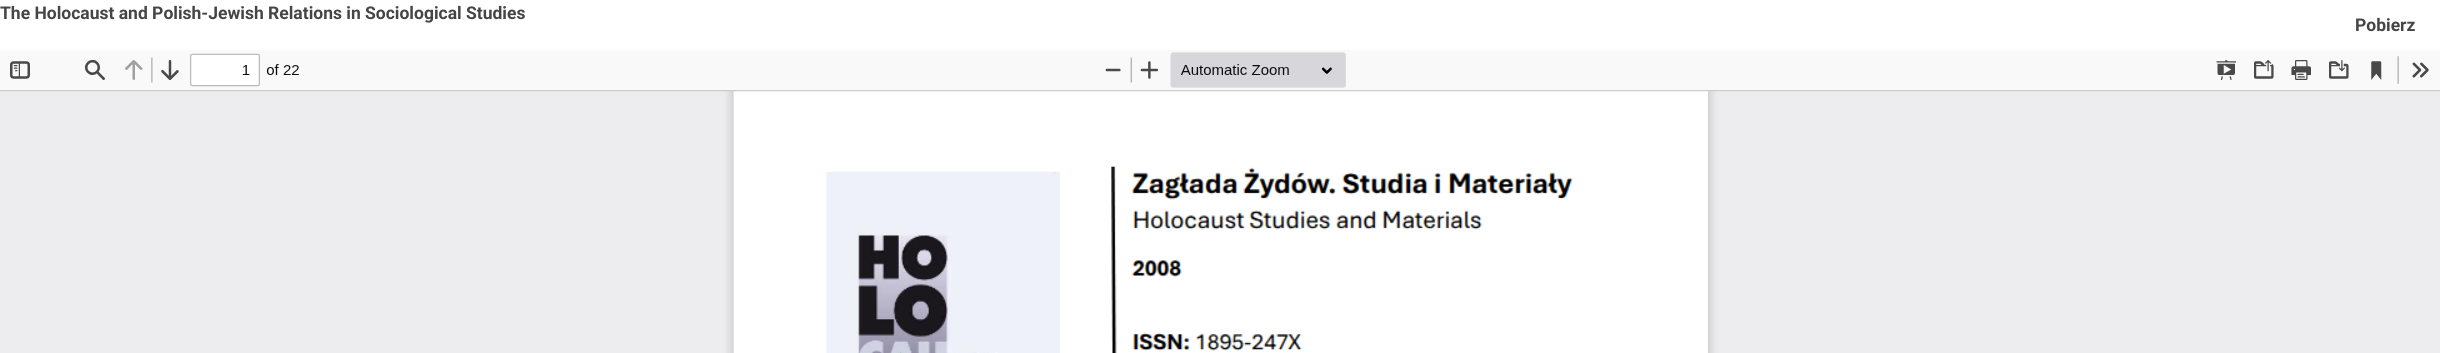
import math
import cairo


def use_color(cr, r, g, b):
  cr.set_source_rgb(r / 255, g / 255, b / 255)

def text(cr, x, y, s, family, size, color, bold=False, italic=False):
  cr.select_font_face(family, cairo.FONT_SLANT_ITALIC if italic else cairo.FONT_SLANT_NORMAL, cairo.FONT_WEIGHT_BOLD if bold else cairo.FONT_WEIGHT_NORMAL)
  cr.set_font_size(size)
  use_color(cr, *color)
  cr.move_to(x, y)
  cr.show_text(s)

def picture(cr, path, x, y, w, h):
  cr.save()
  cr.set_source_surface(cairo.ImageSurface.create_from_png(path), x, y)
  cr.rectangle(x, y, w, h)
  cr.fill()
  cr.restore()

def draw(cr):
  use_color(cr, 255, 255, 255)
  cr.paint()
  picture(cr, "img_01.png", 0, 50, 2440, 303)
  text(cr, 0, 19, "The Holocaust and Polish-Jewish Relations in Sociological Studies", "Roboto", 17.5, (69, 69, 69), bold=True)
  text(cr, 2355, 31, "Pobierz", "Roboto", 17.5, (69, 69, 69), bold=True)


surface = cairo.ImageSurface(cairo.FORMAT_RGB24, 2440, 353)
cr = cairo.Context(surface)
options = cairo.FontOptions()
options.set_hint_metrics(cairo.HINT_METRICS_OFF)
options.set_hint_style(cairo.HINT_STYLE_NONE)
cr.set_font_options(options)
cr.set_miter_limit(4)
draw(cr)
surface.write_to_png("out.png")
